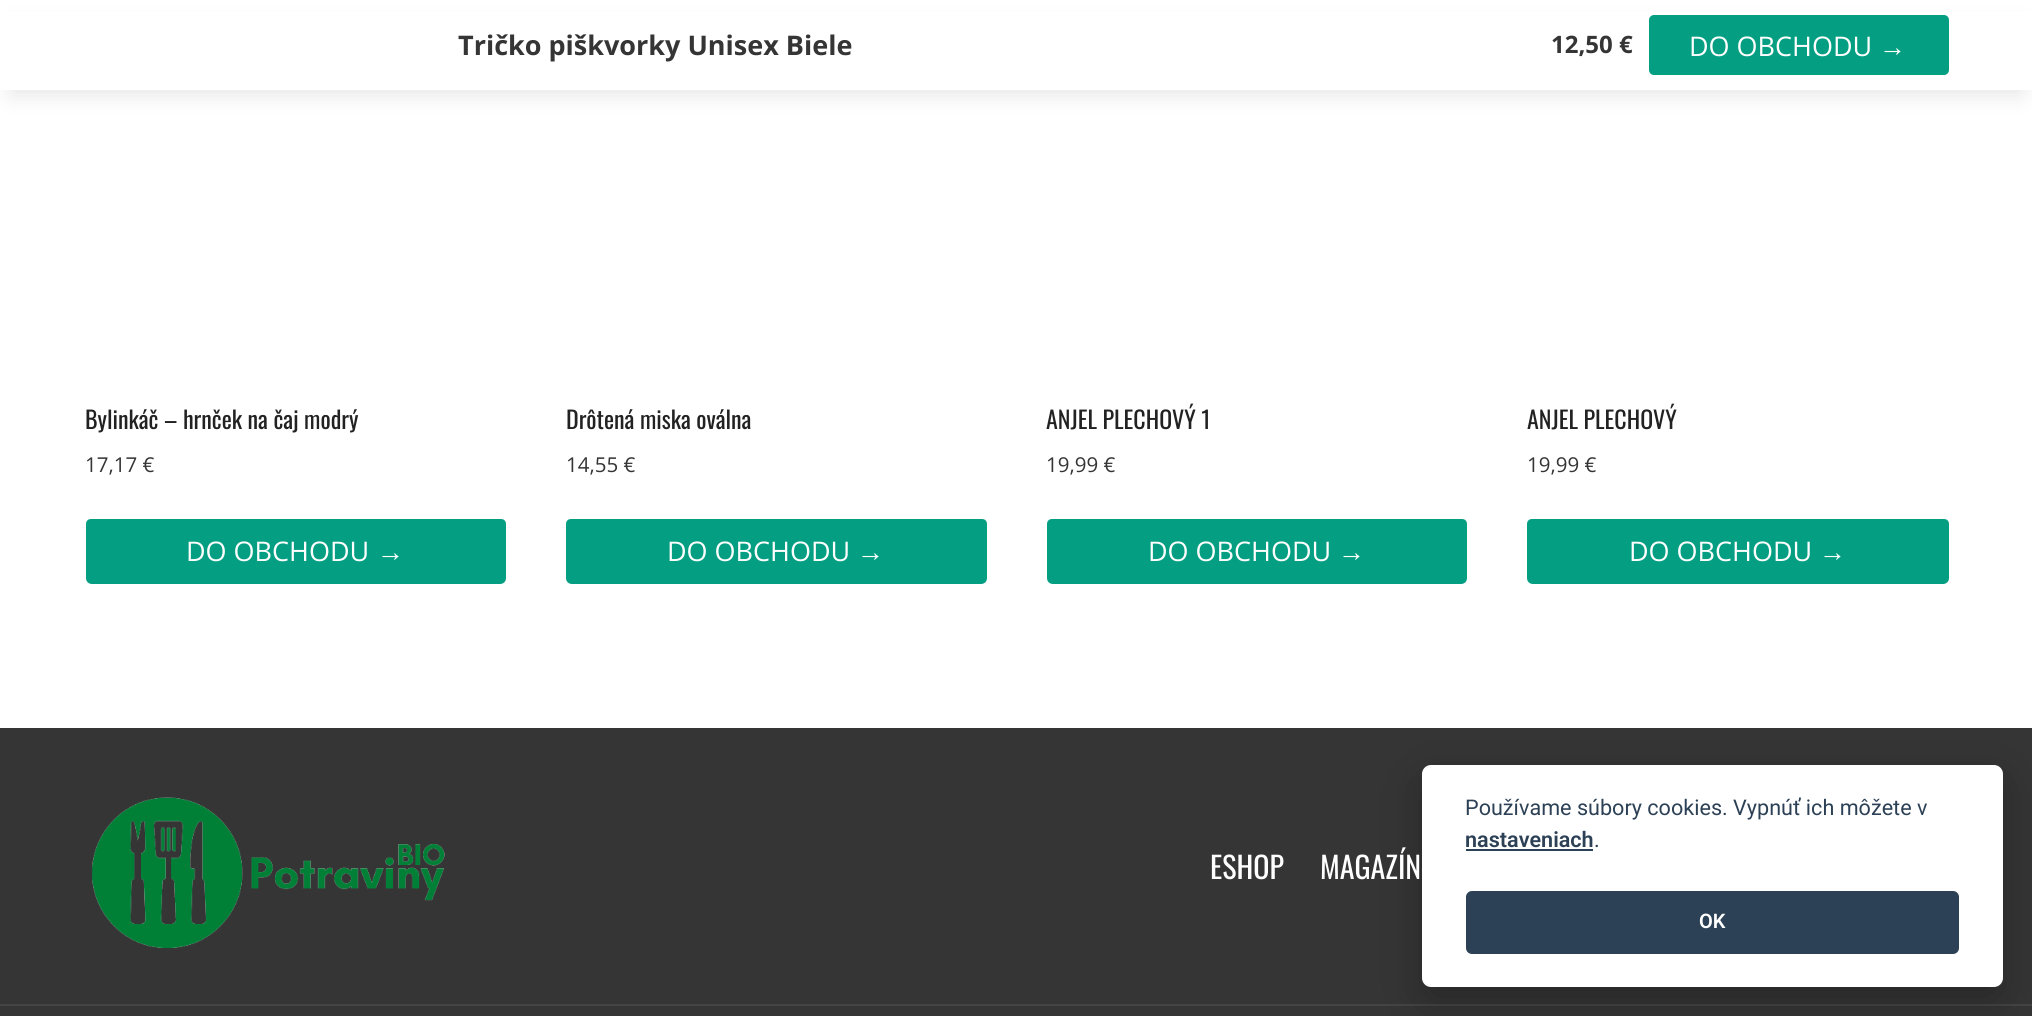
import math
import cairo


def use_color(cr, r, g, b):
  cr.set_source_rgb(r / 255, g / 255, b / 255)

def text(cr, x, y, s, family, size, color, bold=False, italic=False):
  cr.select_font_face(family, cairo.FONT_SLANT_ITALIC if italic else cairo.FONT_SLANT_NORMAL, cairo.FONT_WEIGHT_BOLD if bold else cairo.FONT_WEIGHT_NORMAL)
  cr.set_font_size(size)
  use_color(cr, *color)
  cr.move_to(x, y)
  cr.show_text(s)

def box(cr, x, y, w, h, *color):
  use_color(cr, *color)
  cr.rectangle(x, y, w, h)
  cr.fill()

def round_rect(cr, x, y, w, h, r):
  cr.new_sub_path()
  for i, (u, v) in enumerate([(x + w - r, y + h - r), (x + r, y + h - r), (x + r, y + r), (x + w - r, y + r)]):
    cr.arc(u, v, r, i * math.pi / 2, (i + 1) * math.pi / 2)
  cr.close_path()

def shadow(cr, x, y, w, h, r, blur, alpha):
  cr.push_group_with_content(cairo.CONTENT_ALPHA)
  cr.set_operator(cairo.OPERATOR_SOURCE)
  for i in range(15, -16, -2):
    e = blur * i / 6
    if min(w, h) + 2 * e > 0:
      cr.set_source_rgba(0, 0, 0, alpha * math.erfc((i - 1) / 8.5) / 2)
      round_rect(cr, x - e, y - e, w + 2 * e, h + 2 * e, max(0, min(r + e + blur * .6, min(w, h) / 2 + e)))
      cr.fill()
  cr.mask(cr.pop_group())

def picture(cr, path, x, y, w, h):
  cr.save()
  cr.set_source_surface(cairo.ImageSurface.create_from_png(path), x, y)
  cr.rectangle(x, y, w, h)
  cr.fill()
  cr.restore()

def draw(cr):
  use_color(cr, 255, 255, 255)
  cr.paint()
  use_color(cr, 0, 0, 0)
  shadow(cr, 11, 26, 2011, 69, 0, 11, 0.1)
  box(cr, 0, 12, 2032, 78, 255, 255, 255)
  use_color(cr, 4, 159, 130)
  round_rect(cr, 1649, 15, 300, 60, 5)
  cr.fill()
  cr.new_path()
  cr.move_to(91, 519)
  cr.line_to(501, 519)
  cr.curve_to(504, 519, 506, 521, 506, 524)
  cr.line_to(506, 578)
  cr.curve_to(506, 581.5, 503.5, 584, 500, 584)
  cr.line_to(92, 584)
  cr.curve_to(88.5, 584, 86, 581.5, 86, 578)
  cr.line_to(86, 524)
  cr.curve_to(86, 521, 88, 519, 91, 519)
  cr.close_path()
  cr.fill()
  cr.new_path()
  cr.move_to(571, 519)
  cr.line_to(982, 519)
  cr.curve_to(985, 519, 987, 521, 987, 524)
  cr.line_to(987, 578)
  cr.curve_to(987, 581.5, 984.5, 584, 981, 584)
  cr.line_to(572, 584)
  cr.curve_to(568.5, 584, 566, 581.5, 566, 578)
  cr.line_to(566, 524)
  cr.curve_to(566, 521, 568, 519, 571, 519)
  cr.close_path()
  cr.fill()
  cr.new_path()
  cr.move_to(1052, 519)
  cr.line_to(1462, 519)
  cr.curve_to(1465, 519, 1467, 521, 1467, 524)
  cr.line_to(1467, 578)
  cr.curve_to(1467, 581.5, 1464.5, 584, 1461, 584)
  cr.line_to(1053, 584)
  cr.curve_to(1049.5, 584, 1047, 581.5, 1047, 578)
  cr.line_to(1047, 524)
  cr.curve_to(1047, 521, 1049, 519, 1052, 519)
  cr.close_path()
  cr.fill()
  cr.new_path()
  cr.move_to(1532, 519)
  cr.line_to(1944, 519)
  cr.curve_to(1947, 519, 1949, 521, 1949, 524)
  cr.line_to(1949, 578)
  cr.curve_to(1949, 581.5, 1946.5, 584, 1943, 584)
  cr.line_to(1533, 584)
  cr.curve_to(1529.5, 584, 1527, 581.5, 1527, 578)
  cr.line_to(1527, 524)
  cr.curve_to(1527, 521, 1529, 519, 1532, 519)
  cr.close_path()
  cr.fill()
  box(cr, 0, 728, 2032, 288, 53, 53, 53)
  box(cr, 0, 1004, 2032, 2, 69, 69, 69)
  picture(cr, "img_01.png", 92, 797, 353, 151)
  use_color(cr, 2, 2, 3)
  shadow(cr, 1422, 780, 581, 222, 9, 22.5, 0.28)
  use_color(cr, 255, 255, 255)
  round_rect(cr, 1422, 765, 581, 222, 9)
  cr.fill()
  box(cr, 1466, 849, 127, 2, 45, 65, 86)
  round_rect(cr, 1466, 891, 493, 63, 6)
  cr.fill()
  text(cr, 458, 55, "Tričko piškvorky Unisex Biele", "Open Sans", 27, (53, 53, 53), bold=True)
  text(cr, 1551, 53, "12,50 €", "Open Sans", 24, (53, 53, 53), bold=True)
  text(cr, 1689, 56, "DO OBCHODU", "Open Sans", 27, (255, 255, 255))
  text(cr, 1879, 56, "→", "Liberation Sans", 27, (255, 255, 255))
  text(cr, 85, 429, "Bylinkáč – hrnček na čaj modrý", "Oswald", 24, (34, 34, 34))
  text(cr, 85, 472, "17,17 €", "Open Sans", 20.5, (53, 53, 53))
  text(cr, 186, 561, "DO OBCHODU", "Open Sans", 27, (255, 255, 255))
  text(cr, 377, 561, "→", "Liberation Sans", 27, (255, 255, 255))
  text(cr, 566, 429, "Drôtená miska oválna", "Oswald", 24, (34, 34, 34))
  text(cr, 566, 472, "14,55 €", "Open Sans", 20.5, (53, 53, 53))
  text(cr, 667, 561, "DO OBCHODU", "Open Sans", 27, (255, 255, 255))
  text(cr, 857, 561, "→", "Liberation Sans", 27, (255, 255, 255))
  text(cr, 1046, 429, "ANJEL PLECHOVÝ 1", "Oswald", 24, (34, 34, 34))
  text(cr, 1046, 472, "19,99 €", "Open Sans", 20.5, (53, 53, 53))
  text(cr, 1148, 561, "DO OBCHODU", "Open Sans", 27, (255, 255, 255))
  text(cr, 1338, 561, "→", "Liberation Sans", 27, (255, 255, 255))
  text(cr, 1527, 429, "ANJEL PLECHOVÝ", "Oswald", 24, (34, 34, 34))
  text(cr, 1527, 472, "19,99 €", "Open Sans", 20.5, (53, 53, 53))
  text(cr, 1629, 561, "DO OBCHODU", "Open Sans", 27, (255, 255, 255))
  text(cr, 1819, 561, "→", "Liberation Sans", 27, (255, 255, 255))
  text(cr, 1210, 879, "ESHOP", "Oswald", 30, (255, 255, 255))
  text(cr, 1320, 879, "MAGAZÍN", "Oswald", 30, (255, 255, 255))
  text(cr, 1465, 815, "Používame súbory cookies. Vypnúť ich môžete v", "Roboto", 21.6, (45, 65, 86))
  text(cr, 1465, 847, "nastaveniach", "Roboto SemiBold", 21.6, (45, 65, 86))
  text(cr, 1594, 847, ".", "Roboto", 21.6, (45, 65, 86))
  text(cr, 1699, 928, "OK", "Roboto SemiBold", 20, (255, 255, 255))


surface = cairo.ImageSurface(cairo.FORMAT_RGB24, 2032, 1016)
cr = cairo.Context(surface)
options = cairo.FontOptions()
options.set_hint_metrics(cairo.HINT_METRICS_OFF)
options.set_hint_style(cairo.HINT_STYLE_NONE)
cr.set_font_options(options)
cr.set_miter_limit(4)
draw(cr)
surface.write_to_png("out.png")
